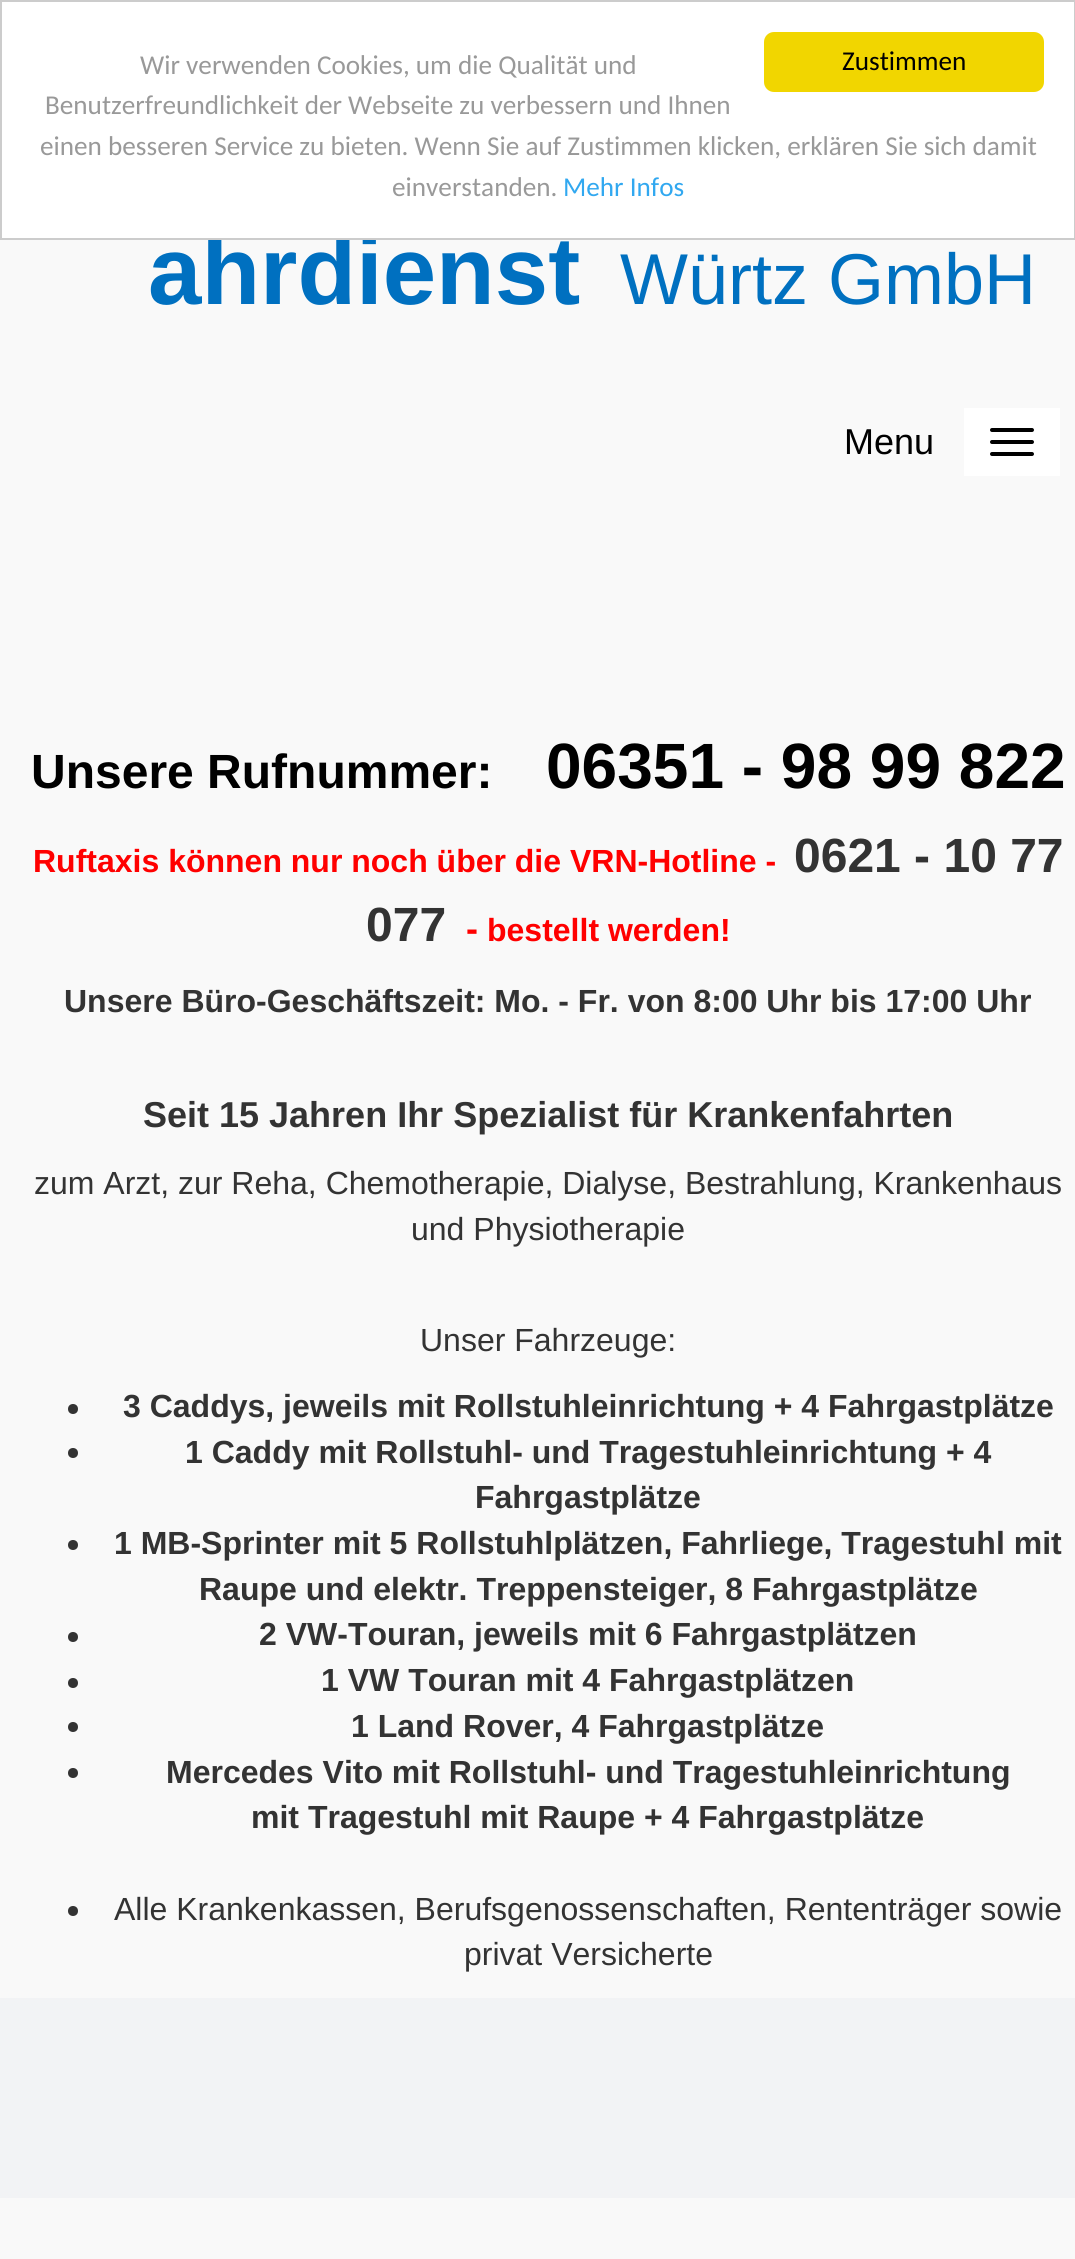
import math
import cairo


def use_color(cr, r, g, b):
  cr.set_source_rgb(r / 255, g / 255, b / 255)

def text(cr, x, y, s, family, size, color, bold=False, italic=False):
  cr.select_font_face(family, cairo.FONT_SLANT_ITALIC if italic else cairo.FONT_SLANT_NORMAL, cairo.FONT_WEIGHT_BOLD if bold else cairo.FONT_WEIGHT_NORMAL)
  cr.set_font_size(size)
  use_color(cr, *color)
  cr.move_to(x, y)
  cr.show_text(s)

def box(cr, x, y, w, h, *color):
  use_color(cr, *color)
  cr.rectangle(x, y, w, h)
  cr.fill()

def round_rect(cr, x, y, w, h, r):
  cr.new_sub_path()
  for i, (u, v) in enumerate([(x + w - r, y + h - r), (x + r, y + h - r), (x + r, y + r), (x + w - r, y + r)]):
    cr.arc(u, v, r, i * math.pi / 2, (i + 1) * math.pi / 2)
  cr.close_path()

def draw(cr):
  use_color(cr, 249, 249, 249)
  cr.paint()
  box(cr, 964, 408, 96, 68, 255, 255, 255)
  use_color(cr, 0, 0, 0)
  round_rect(cr, 990, 428, 44, 4, 2)
  cr.fill()
  round_rect(cr, 990, 440, 44, 4, 2)
  cr.fill()
  round_rect(cr, 990, 452, 44, 4, 2)
  cr.fill()
  use_color(cr, 51, 51, 51)
  cr.arc(73, 1409, 5, 0, 2 * math.pi)
  cr.fill()
  cr.arc(73, 1453, 5, 0, 2 * math.pi)
  cr.fill()
  cr.arc(73, 1545, 5, 0, 2 * math.pi)
  cr.fill()
  cr.arc(73, 1637, 5, 0, 2 * math.pi)
  cr.fill()
  cr.arc(73, 1683, 5, 0, 2 * math.pi)
  cr.fill()
  cr.arc(73, 1727, 5, 0, 2 * math.pi)
  cr.fill()
  cr.arc(73, 1773, 5, 0, 2 * math.pi)
  cr.fill()
  cr.arc(73, 1911, 5, 0, 2 * math.pi)
  cr.fill()
  box(cr, 0, 1998, 1075, 200, 242, 243, 245)
  text(cr, 148, 304, "ahrdienst", "Liberation Sans", 96, (0, 112, 192), bold=True)
  use_color(cr, 255, 255, 255)
  cr.rectangle(1, 1, 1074, 238)
  cr.fill_preserve()
  use_color(cr, 204, 204, 204)
  cr.stroke()
  text(cr, 563, 196, "Mehr Infos", "Carlito", 27.2, (49, 168, 240))
  text(cr, 392, 196, "einverstanden.", "Carlito", 27.2, (153, 153, 153))
  text(cr, 40, 155, "einen besseren Service zu bieten. Wenn Sie auf Zustimmen klicken, erklären Sie sich damit", "Carlito", 27.2, (153, 153, 153))
  text(cr, 45, 114, "Benutzerfreundlichkeit der Webseite zu verbessern und Ihnen", "Carlito", 27.2, (153, 153, 153))
  text(cr, 140, 74, "Wir verwenden Cookies, um die Qualität und", "Carlito", 27.2, (153, 153, 153))
  use_color(cr, 241, 214, 0)
  round_rect(cr, 764, 32, 280, 60, 10)
  cr.fill()
  text(cr, 842, 70, "Zustimmen", "Carlito", 27.2, (0, 0, 0))
  text(cr, 620, 304, "Würtz GmbH", "Liberation Sans", 72, (0, 112, 192))
  text(cr, 844, 454, "Menu", "Liberation Sans", 36, (0, 0, 0))
  text(cr, 31, 788, "Unsere Rufnummer:", "Liberation Sans", 48, (0, 0, 0), bold=True)
  text(cr, 546, 788, "06351 - 98 99 822", "Liberation Sans", 64, (0, 0, 0), bold=True)
  text(cr, 33, 872, "Ruftaxis können nur noch über die VRN-Hotline -", "Liberation Sans", 32, (255, 0, 0), bold=True)
  text(cr, 794, 872, "0621 - 10 77", "Liberation Sans", 48, (51, 51, 51), bold=True)
  text(cr, 366, 941, "077", "Liberation Sans", 48, (51, 51, 51), bold=True)
  text(cr, 466, 941, "-", "Liberation Sans", 36, (255, 0, 0), bold=True)
  text(cr, 487, 941, "bestellt werden!", "Liberation Sans", 32, (255, 0, 0), bold=True)
  text(cr, 64, 1012, "Unsere Büro-Geschäftszeit: Mo. - Fr. von 8:00 Uhr bis 17:00 Uhr", "Liberation Sans", 32, (51, 51, 51), bold=True)
  text(cr, 143, 1127, "Seit 15 Jahren Ihr Spezialist für Krankenfahrten", "Liberation Sans", 36, (51, 51, 51), bold=True)
  text(cr, 34, 1194, "zum Arzt, zur Reha, Chemotherapie, Dialyse, Bestrahlung, Krankenhaus", "Liberation Sans", 32, (51, 51, 51))
  text(cr, 411, 1240, "und Physiotherapie", "Liberation Sans", 32, (51, 51, 51))
  text(cr, 420, 1351, "Unser Fahrzeuge:", "Liberation Sans", 32, (51, 51, 51))
  text(cr, 123, 1417, "3 Caddys, jeweils mit Rollstuhleinrichtung + 4 Fahrgastplätze", "Liberation Sans", 32, (51, 51, 51), bold=True)
  text(cr, 185, 1463, "1 Caddy mit Rollstuhl- und Tragestuhleinrichtung + 4", "Liberation Sans", 32, (51, 51, 51), bold=True)
  text(cr, 475, 1508, "Fahrgastplätze", "Liberation Sans", 32, (51, 51, 51), bold=True)
  text(cr, 114, 1554, "1 MB-Sprinter mit 5 Rollstuhlplätzen, Fahrliege, Tragestuhl mit", "Liberation Sans", 32, (51, 51, 51), bold=True)
  text(cr, 199, 1600, "Raupe und elektr. Treppensteiger, 8 Fahrgastplätze", "Liberation Sans", 32, (51, 51, 51), bold=True)
  text(cr, 259, 1645, "2 VW-Touran, jeweils mit 6 Fahrgastplätzen", "Liberation Sans", 32, (51, 51, 51), bold=True)
  text(cr, 321, 1691, "1 VW Touran mit 4 Fahrgastplätzen", "Liberation Sans", 32, (51, 51, 51), bold=True)
  text(cr, 351, 1737, "1 Land Rover, 4 Fahrgastplätze", "Liberation Sans", 32, (51, 51, 51), bold=True)
  text(cr, 166, 1783, "Mercedes Vito mit Rollstuhl- und Tragestuhleinrichtung", "Liberation Sans", 32, (51, 51, 51), bold=True)
  text(cr, 251, 1828, "mit Tragestuhl mit Raupe + 4 Fahrgastplätze", "Liberation Sans", 32, (51, 51, 51), bold=True)
  text(cr, 114, 1920, "Alle Krankenkassen, Berufsgenossenschaften, Rententräger sowie", "Liberation Sans", 32, (51, 51, 51))
  text(cr, 464, 1965, "privat Versicherte", "Liberation Sans", 32, (51, 51, 51))


surface = cairo.ImageSurface(cairo.FORMAT_RGB24, 1075, 2259)
cr = cairo.Context(surface)
options = cairo.FontOptions()
options.set_hint_metrics(cairo.HINT_METRICS_OFF)
options.set_hint_style(cairo.HINT_STYLE_NONE)
cr.set_font_options(options)
cr.set_miter_limit(4)
draw(cr)
surface.write_to_png("out.png")
